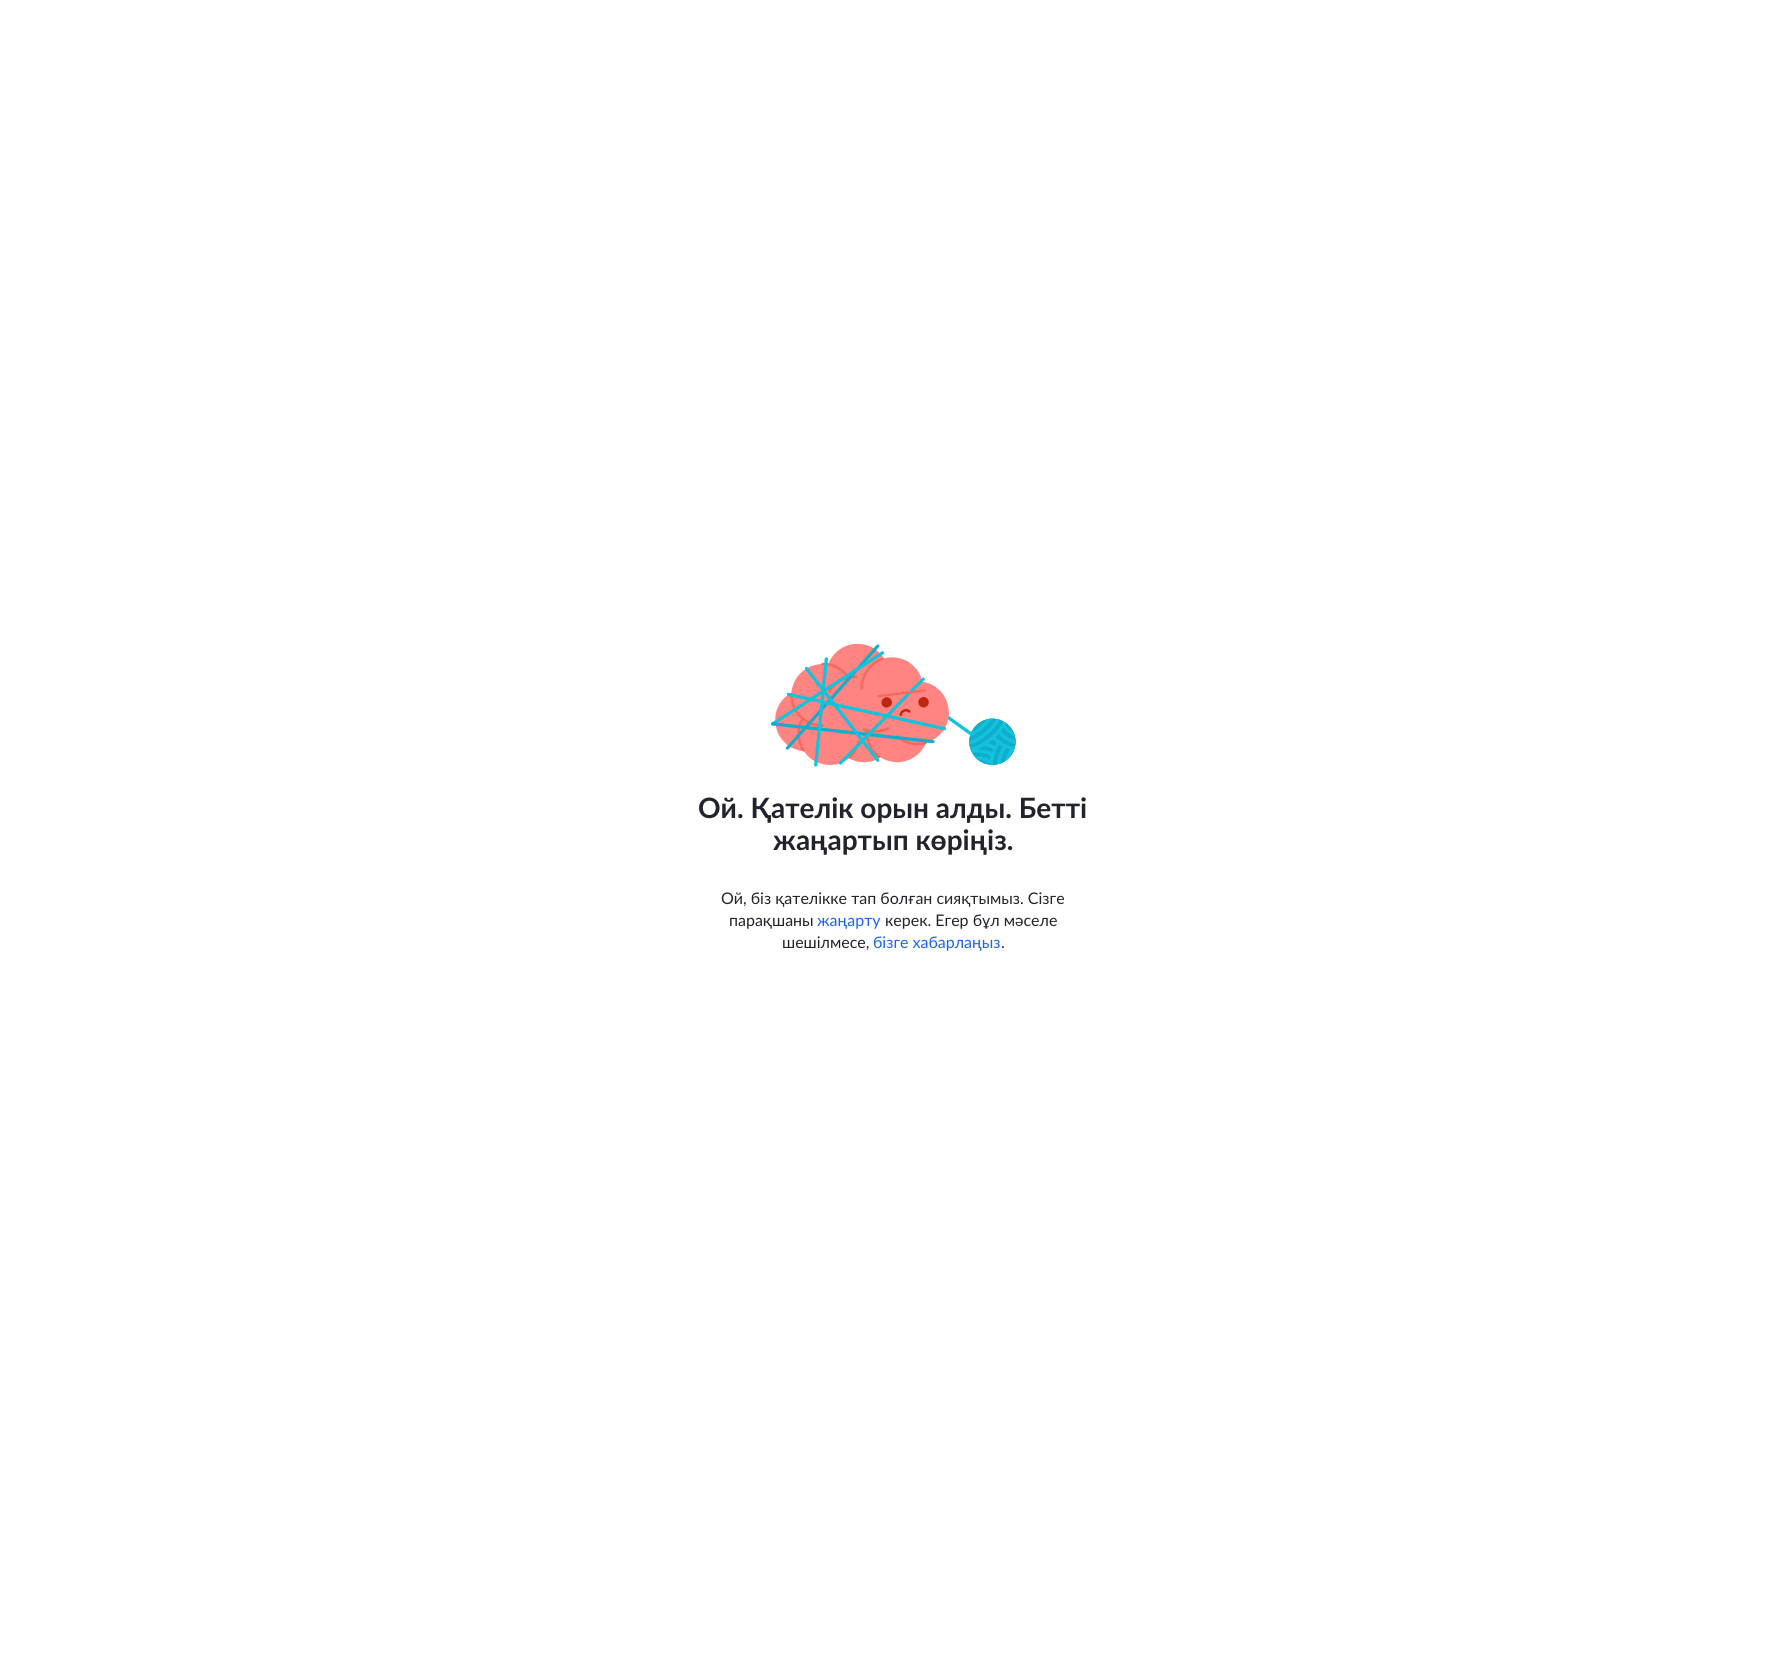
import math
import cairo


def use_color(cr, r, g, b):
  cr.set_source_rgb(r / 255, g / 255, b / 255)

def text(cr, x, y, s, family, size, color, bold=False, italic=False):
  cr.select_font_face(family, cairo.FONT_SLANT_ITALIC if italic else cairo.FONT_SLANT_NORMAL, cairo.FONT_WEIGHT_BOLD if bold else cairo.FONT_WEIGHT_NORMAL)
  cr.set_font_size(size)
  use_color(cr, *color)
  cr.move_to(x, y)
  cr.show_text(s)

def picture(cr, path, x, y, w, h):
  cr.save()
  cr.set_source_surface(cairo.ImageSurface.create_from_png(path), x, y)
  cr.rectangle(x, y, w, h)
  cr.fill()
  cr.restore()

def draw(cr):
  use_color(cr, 255, 255, 255)
  cr.paint()
  picture(cr, "img_01.png", 771, 643, 245, 124)
  text(cr, 698, 818, "Ой. Қателік орын алды. Бетті", "Lato", 28, (33, 36, 44), bold=True)
  text(cr, 773, 850, "жаңартып көріңіз.", "Lato", 28, (33, 36, 44), bold=True)
  text(cr, 721, 904, "Ой, біз қателікке тап болған сияқтымыз. Сізге", "Lato", 16, (33, 36, 44))
  text(cr, 729, 926, "парақшаны", "Lato", 16, (33, 36, 44))
  text(cr, 817, 926, "жаңарту", "Lato", 16, (24, 101, 242))
  text(cr, 885, 926, "керек. Егер бұл мәселе", "Lato", 16, (33, 36, 44))
  text(cr, 782, 948, "шешілмесе,", "Lato", 16, (33, 36, 44))
  text(cr, 873, 948, "бізге хабарлаңыз", "Lato", 16, (24, 101, 242))
  text(cr, 1001, 948, ".", "Lato", 16, (33, 36, 44))


surface = cairo.ImageSurface(cairo.FORMAT_RGB24, 1786, 1655)
cr = cairo.Context(surface)
options = cairo.FontOptions()
options.set_hint_metrics(cairo.HINT_METRICS_OFF)
options.set_hint_style(cairo.HINT_STYLE_NONE)
cr.set_font_options(options)
cr.set_miter_limit(4)
draw(cr)
surface.write_to_png("out.png")
